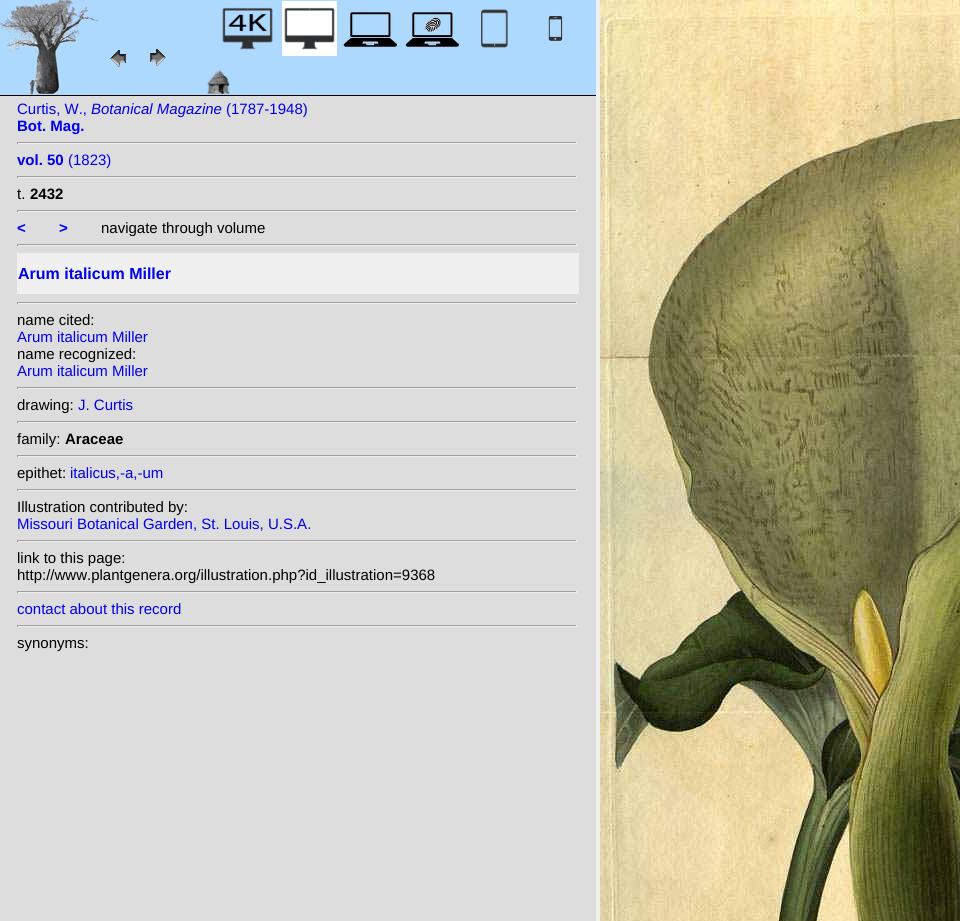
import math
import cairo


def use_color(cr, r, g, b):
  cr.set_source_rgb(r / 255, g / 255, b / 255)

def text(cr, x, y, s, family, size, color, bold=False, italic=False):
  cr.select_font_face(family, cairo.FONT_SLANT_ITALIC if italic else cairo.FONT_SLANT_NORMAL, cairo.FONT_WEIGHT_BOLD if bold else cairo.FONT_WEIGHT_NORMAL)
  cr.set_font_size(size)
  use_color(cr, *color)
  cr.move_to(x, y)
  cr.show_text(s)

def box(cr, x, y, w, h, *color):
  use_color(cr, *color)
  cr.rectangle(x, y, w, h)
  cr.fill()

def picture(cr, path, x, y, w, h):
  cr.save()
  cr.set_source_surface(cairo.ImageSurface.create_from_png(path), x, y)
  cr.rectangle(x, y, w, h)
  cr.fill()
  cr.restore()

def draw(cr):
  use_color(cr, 240, 240, 240)
  cr.paint()
  box(cr, 0, 96, 596, 825, 221, 221, 221)
  box(cr, 0, 0, 596, 95, 173, 217, 254)
  box(cr, 0, 95, 596, 1, 0, 0, 0)
  picture(cr, "img_01.png", 0, 0, 100, 94)
  picture(cr, "img_02.png", 110, 50, 16, 17)
  picture(cr, "img_03.png", 150, 49, 16, 17)
  picture(cr, "img_04.png", 222, 7, 51, 43)
  picture(cr, "img_05.png", 282, 1, 55, 55)
  picture(cr, "img_06.png", 343, 9, 55, 38)
  picture(cr, "img_07.png", 405, 9, 55, 38)
  picture(cr, "img_08.png", 481, 9, 27, 39)
  picture(cr, "img_09.png", 548, 15, 15, 26)
  picture(cr, "img_10.png", 207, 70, 23, 24)
  box(cr, 17, 142, 560, 1, 159, 159, 159)
  box(cr, 576, 142, 1, 2, 238, 238, 238)
  box(cr, 17, 143, 560, 1, 238, 238, 238)
  box(cr, 17, 142, 1, 2, 159, 159, 159)
  box(cr, 17, 176, 560, 1, 159, 159, 159)
  box(cr, 576, 176, 1, 2, 238, 238, 238)
  box(cr, 17, 177, 560, 1, 238, 238, 238)
  box(cr, 17, 176, 1, 2, 159, 159, 159)
  box(cr, 17, 210, 560, 1, 159, 159, 159)
  box(cr, 576, 210, 1, 2, 238, 238, 238)
  box(cr, 17, 211, 560, 1, 238, 238, 238)
  box(cr, 17, 210, 1, 2, 159, 159, 159)
  box(cr, 17, 244, 560, 1, 159, 159, 159)
  box(cr, 576, 244, 1, 2, 238, 238, 238)
  box(cr, 17, 245, 560, 1, 238, 238, 238)
  box(cr, 17, 244, 1, 2, 159, 159, 159)
  box(cr, 17, 253, 562, 41, 240, 240, 240)
  box(cr, 17, 302, 560, 1, 159, 159, 159)
  box(cr, 576, 302, 1, 2, 238, 238, 238)
  box(cr, 17, 303, 560, 1, 238, 238, 238)
  box(cr, 17, 302, 1, 2, 159, 159, 159)
  box(cr, 17, 387, 560, 1, 159, 159, 159)
  box(cr, 576, 387, 1, 2, 238, 238, 238)
  box(cr, 17, 388, 560, 1, 238, 238, 238)
  box(cr, 17, 387, 1, 2, 159, 159, 159)
  box(cr, 17, 421, 560, 1, 159, 159, 159)
  box(cr, 576, 421, 1, 2, 238, 238, 238)
  box(cr, 17, 422, 560, 1, 238, 238, 238)
  box(cr, 17, 421, 1, 2, 159, 159, 159)
  box(cr, 17, 455, 560, 1, 159, 159, 159)
  box(cr, 576, 455, 1, 2, 238, 238, 238)
  box(cr, 17, 456, 560, 1, 238, 238, 238)
  box(cr, 17, 455, 1, 2, 159, 159, 159)
  box(cr, 17, 489, 560, 1, 159, 159, 159)
  box(cr, 576, 489, 1, 2, 238, 238, 238)
  box(cr, 17, 490, 560, 1, 238, 238, 238)
  box(cr, 17, 489, 1, 2, 159, 159, 159)
  box(cr, 17, 540, 560, 1, 159, 159, 159)
  box(cr, 576, 540, 1, 2, 238, 238, 238)
  box(cr, 17, 541, 560, 1, 238, 238, 238)
  box(cr, 17, 540, 1, 2, 159, 159, 159)
  box(cr, 17, 591, 560, 1, 159, 159, 159)
  box(cr, 576, 591, 1, 2, 238, 238, 238)
  box(cr, 17, 592, 560, 1, 238, 238, 238)
  box(cr, 17, 591, 1, 2, 159, 159, 159)
  box(cr, 17, 625, 560, 1, 159, 159, 159)
  box(cr, 576, 625, 1, 2, 238, 238, 238)
  box(cr, 17, 626, 560, 1, 238, 238, 238)
  box(cr, 17, 625, 1, 2, 159, 159, 159)
  picture(cr, "img_11.png", 600, 0, 360, 921)
  text(cr, 17, 114, "Curtis, W.,", "Liberation Sans", 15, (0, 0, 238))
  text(cr, 91, 114, "Botanical Magazine", "Liberation Sans", 15, (0, 0, 238), italic=True)
  text(cr, 226, 114, "(1787-1948)", "Liberation Sans", 15, (0, 0, 238))
  text(cr, 17, 131, "Bot. Mag.", "Liberation Sans", 15, (0, 0, 238), bold=True)
  text(cr, 17, 165, "vol. 50", "Liberation Sans", 15, (0, 0, 238), bold=True)
  text(cr, 68, 165, "(1823)", "Liberation Sans", 15, (0, 0, 238))
  text(cr, 17, 199, "t.", "Liberation Sans", 15, (0, 0, 0))
  text(cr, 30, 199, "2432", "Liberation Sans", 15, (0, 0, 0), bold=True)
  text(cr, 17, 233, "<", "Liberation Sans", 15, (0, 0, 238), bold=True)
  text(cr, 59, 233, ">", "Liberation Sans", 15, (0, 0, 238), bold=True)
  text(cr, 101, 233, "navigate through volume", "Liberation Sans", 15, (0, 0, 0))
  text(cr, 18, 279, "Arum italicum Miller", "Liberation Sans", 16, (0, 0, 238), bold=True)
  text(cr, 17, 325, "name cited:", "Liberation Sans", 15, (0, 0, 0))
  text(cr, 17, 342, "Arum italicum Miller", "Liberation Sans", 15, (0, 0, 238))
  text(cr, 17, 359, "name recognized:", "Liberation Sans", 15, (0, 0, 0))
  text(cr, 17, 376, "Arum italicum Miller", "Liberation Sans", 15, (0, 0, 238))
  text(cr, 17, 410, "drawing:", "Liberation Sans", 15, (0, 0, 0))
  text(cr, 78, 410, "J. Curtis", "Liberation Sans", 15, (0, 0, 238))
  text(cr, 17, 444, "family:", "Liberation Sans", 15, (0, 0, 0))
  text(cr, 65, 444, "Araceae", "Liberation Sans", 15, (0, 0, 0), bold=True)
  text(cr, 17, 478, "epithet:", "Liberation Sans", 15, (0, 0, 0))
  text(cr, 70, 478, "italicus,-a,-um", "Liberation Sans", 15, (0, 0, 238))
  text(cr, 17, 512, "Illustration contributed by:", "Liberation Sans", 15, (0, 0, 0))
  text(cr, 17, 529, "Missouri Botanical Garden, St. Louis, U.S.A.", "Liberation Sans", 15, (0, 0, 238))
  text(cr, 17, 563, "link to this page:", "Liberation Sans", 15, (0, 0, 0))
  text(cr, 17, 580, "http://www.plantgenera.org/illustration.php?id_illustration=9368", "Liberation Sans", 15, (0, 0, 0))
  text(cr, 17, 614, "contact about this record", "Liberation Sans", 15, (0, 0, 238))
  text(cr, 17, 648, "synonyms:", "Liberation Sans", 15, (0, 0, 0))


surface = cairo.ImageSurface(cairo.FORMAT_RGB24, 960, 921)
cr = cairo.Context(surface)
options = cairo.FontOptions()
options.set_hint_metrics(cairo.HINT_METRICS_OFF)
options.set_hint_style(cairo.HINT_STYLE_NONE)
cr.set_font_options(options)
cr.set_miter_limit(4)
draw(cr)
surface.write_to_png("out.png")
